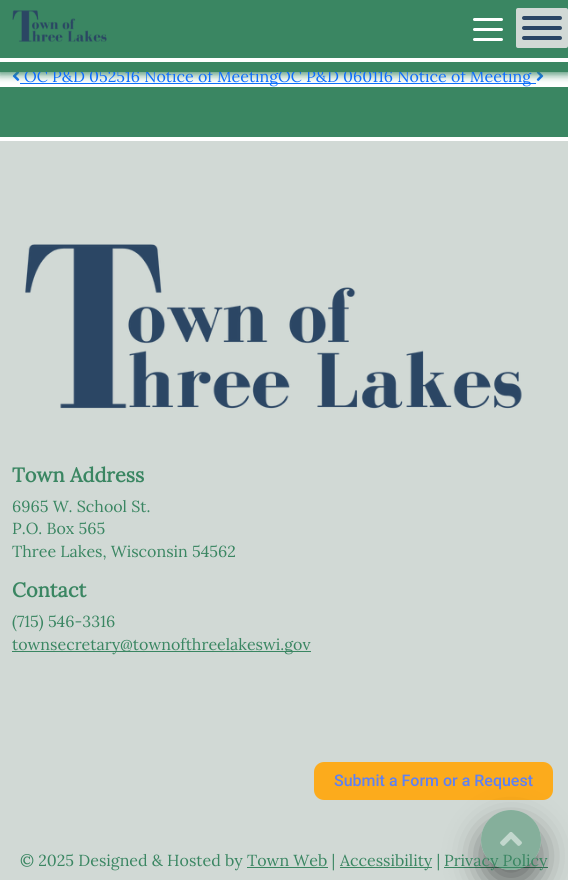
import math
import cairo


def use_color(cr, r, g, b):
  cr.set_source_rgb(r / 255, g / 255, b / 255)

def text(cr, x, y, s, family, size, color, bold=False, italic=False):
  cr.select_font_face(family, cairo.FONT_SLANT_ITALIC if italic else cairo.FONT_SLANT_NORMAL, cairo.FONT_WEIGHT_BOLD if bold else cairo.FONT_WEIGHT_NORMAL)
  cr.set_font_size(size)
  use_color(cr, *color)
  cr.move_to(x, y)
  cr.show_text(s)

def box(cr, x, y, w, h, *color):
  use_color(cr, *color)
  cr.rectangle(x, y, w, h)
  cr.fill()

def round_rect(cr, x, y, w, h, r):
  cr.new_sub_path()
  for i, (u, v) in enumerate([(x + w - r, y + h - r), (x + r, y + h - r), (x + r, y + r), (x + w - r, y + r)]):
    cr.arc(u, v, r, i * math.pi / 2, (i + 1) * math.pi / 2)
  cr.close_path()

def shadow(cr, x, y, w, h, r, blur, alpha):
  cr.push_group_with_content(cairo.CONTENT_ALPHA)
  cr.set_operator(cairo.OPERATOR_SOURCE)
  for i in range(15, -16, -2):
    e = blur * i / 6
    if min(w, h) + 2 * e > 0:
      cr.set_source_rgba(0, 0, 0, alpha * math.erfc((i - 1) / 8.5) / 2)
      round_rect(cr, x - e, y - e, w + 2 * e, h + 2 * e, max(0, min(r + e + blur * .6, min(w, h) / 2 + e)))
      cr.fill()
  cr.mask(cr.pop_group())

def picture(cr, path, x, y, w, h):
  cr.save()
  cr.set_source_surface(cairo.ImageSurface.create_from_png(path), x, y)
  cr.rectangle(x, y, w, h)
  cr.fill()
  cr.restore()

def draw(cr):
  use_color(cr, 255, 255, 255)
  cr.paint()
  picture(cr, "img_02.png", 12, 72, 8, 9)
  box(cr, 20, 83, 258, 1, 13, 110, 253)
  box(cr, 278, 83, 258, 1, 13, 110, 253)
  picture(cr, "img_03.png", 536, 72, 8, 9)
  box(cr, 0, 87, 568, 50, 58, 134, 98)
  use_color(cr, 58, 134, 98)
  shadow(cr, -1, 0, 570, 74, 0, 4.5, 1)
  box(cr, 0, 141, 568, 739, 209, 217, 213)
  picture(cr, "img_04.png", 25, 244, 497, 165)
  box(cr, 12, 651, 299, 1, 58, 134, 98)
  box(cr, 340, 867, 92, 1, 58, 134, 98)
  box(cr, 444, 867, 104, 1, 58, 134, 98)
  box(cr, 247, 867, 81, 1, 58, 134, 98)
  use_color(cr, 252, 171, 28)
  round_rect(cr, 314, 762, 239, 38, 10)
  cr.fill()
  cr.save()
  cr.set_fill_rule(cairo.FILL_RULE_EVEN_ODD)
  cr.new_path()
  cr.move_to(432, 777)
  cr.line_to(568, 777)
  cr.line_to(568, 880)
  cr.line_to(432, 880)
  cr.close_path()
  cr.move_to(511, 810)
  cr.curve_to(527.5, 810, 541, 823.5, 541, 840)
  cr.curve_to(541, 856.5, 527.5, 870, 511, 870)
  cr.curve_to(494.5, 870, 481, 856.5, 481, 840)
  cr.curve_to(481, 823.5, 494.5, 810, 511, 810)
  cr.close_path()
  cr.clip()
  use_color(cr, 0, 0, 0)
  shadow(cr, 481, 826, 60, 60, 30, 16, 0.5)
  cr.restore()
  text(cr, 24, 82, "OC P&D 052516 Notice of Meeting", "Lora", 16, (13, 110, 253))
  text(cr, 278, 82, "OC P&D 060116 Notice of Meeting", "Lora", 16, (13, 110, 253))
  box(cr, 0, 0, 568, 72, 58, 134, 98)
  box(cr, 0, 58, 568, 4, 255, 255, 255)
  picture(cr, "img_01.png", 12, 10, 95, 32)
  use_color(cr, 209, 217, 213)
  round_rect(cr, 516, 8, 52, 40, 2)
  cr.fill()
  use_color(cr, 43, 70, 100)
  round_rect(cr, 522, 36, 40, 4, 2)
  cr.fill()
  round_rect(cr, 522, 26, 40, 4, 2)
  cr.fill()
  round_rect(cr, 522, 16, 40, 4, 2)
  cr.fill()
  use_color(cr, 255, 255, 255)
  round_rect(cr, 473, 38, 30, 3, 1.5)
  cr.fill()
  round_rect(cr, 473, 28, 30, 3, 1.5)
  cr.fill()
  round_rect(cr, 473, 18, 30, 3, 1.5)
  cr.fill()
  text(cr, 12, 482, "Town Address", "Lora", 20, (58, 134, 98), bold=True)
  text(cr, 12, 512, "6965 W. School St.", "Lora", 16, (58, 134, 98))
  text(cr, 12, 534, "P.O. Box 565", "Lora", 16, (58, 134, 98))
  text(cr, 12, 557, "Three Lakes, Wisconsin 54562", "Lora", 16, (58, 134, 98))
  text(cr, 12, 597, "Contact", "Lora", 20, (58, 134, 98), bold=True)
  text(cr, 12, 627, "(715) 546-3316", "Lora", 16, (58, 134, 98))
  text(cr, 12, 650, "townsecretary@townofthreelakeswi.gov", "Lora", 16, (58, 134, 98))
  text(cr, 20, 866, "© 2025 Designed & Hosted by Town Web |", "Lora", 16, (58, 134, 98))
  text(cr, 340, 866, "Accessibility |", "Lora", 16, (58, 134, 98))
  text(cr, 444, 866, "Privacy Policy", "Lora", 16, (58, 134, 98))
  text(cr, 334, 786, "Submit a Form or a Request", "Roboto Medium", 16, (94, 129, 244))
  cr.set_source_rgba(0.227, 0.525, 0.384, 0.5)
  cr.new_path()
  cr.arc(511, 840, 30, 0, 2 * math.pi)
  cr.fill()
  picture(cr, "img_05.png", 500, 832, 22, 14)


surface = cairo.ImageSurface(cairo.FORMAT_RGB24, 568, 880)
cr = cairo.Context(surface)
options = cairo.FontOptions()
options.set_hint_metrics(cairo.HINT_METRICS_OFF)
options.set_hint_style(cairo.HINT_STYLE_NONE)
cr.set_font_options(options)
cr.set_miter_limit(4)
draw(cr)
surface.write_to_png("out.png")
